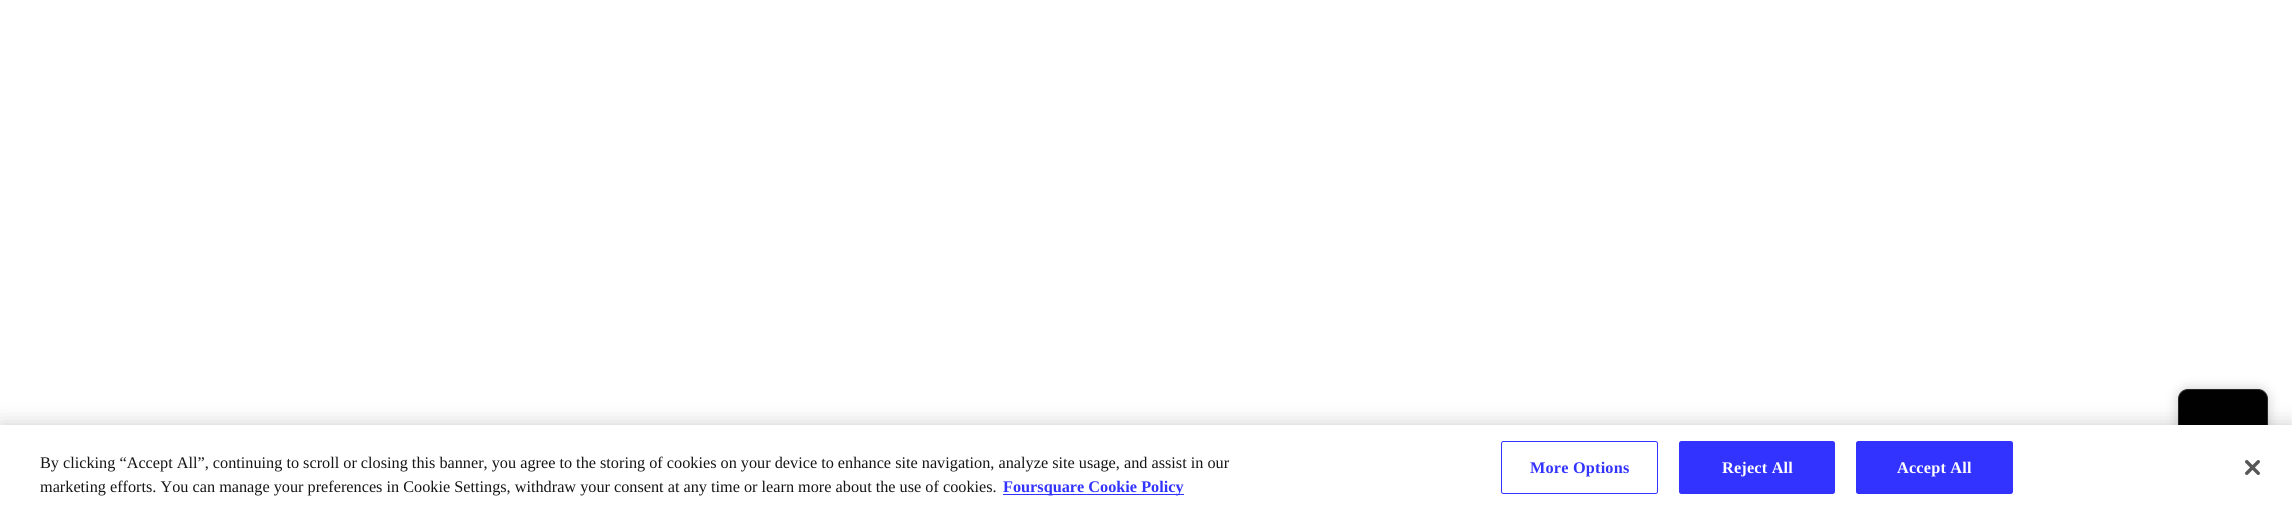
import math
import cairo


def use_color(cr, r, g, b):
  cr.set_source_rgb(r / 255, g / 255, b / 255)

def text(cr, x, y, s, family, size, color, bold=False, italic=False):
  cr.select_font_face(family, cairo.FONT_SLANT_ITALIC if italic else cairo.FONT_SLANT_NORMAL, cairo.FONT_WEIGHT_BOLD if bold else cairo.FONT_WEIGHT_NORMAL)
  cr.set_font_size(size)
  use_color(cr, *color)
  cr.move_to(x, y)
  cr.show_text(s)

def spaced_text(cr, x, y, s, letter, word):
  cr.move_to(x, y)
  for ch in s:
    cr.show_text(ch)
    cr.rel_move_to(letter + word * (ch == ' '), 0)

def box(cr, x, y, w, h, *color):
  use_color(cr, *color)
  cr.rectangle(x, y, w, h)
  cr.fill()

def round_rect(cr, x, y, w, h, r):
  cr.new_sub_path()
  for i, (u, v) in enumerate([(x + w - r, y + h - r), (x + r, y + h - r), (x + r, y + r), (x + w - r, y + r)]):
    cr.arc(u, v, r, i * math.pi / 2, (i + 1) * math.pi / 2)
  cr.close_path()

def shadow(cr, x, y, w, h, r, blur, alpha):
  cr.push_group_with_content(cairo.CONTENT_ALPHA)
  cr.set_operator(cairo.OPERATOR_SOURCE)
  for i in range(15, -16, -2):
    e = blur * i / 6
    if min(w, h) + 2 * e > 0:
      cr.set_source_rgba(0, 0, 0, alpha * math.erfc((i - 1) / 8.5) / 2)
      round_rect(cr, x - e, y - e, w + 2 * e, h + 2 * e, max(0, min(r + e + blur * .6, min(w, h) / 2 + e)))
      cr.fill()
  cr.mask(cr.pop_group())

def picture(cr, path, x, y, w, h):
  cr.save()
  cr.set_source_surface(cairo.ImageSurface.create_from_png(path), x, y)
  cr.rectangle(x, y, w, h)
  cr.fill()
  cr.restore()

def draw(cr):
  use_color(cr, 255, 255, 255)
  cr.paint()
  use_color(cr, 0, 0, 0)
  shadow(cr, 2178, 389, 90, 100, 10, 6, 0.2)
  use_color(cr, 1, 1, 1)
  round_rect(cr, 2178.5, 389.5, 89, 99, 9.5)
  cr.fill_preserve()
  use_color(cr, 41, 41, 41)
  cr.set_line_width(1)
  cr.stroke()
  use_color(cr, 0, 0, 0)
  shadow(cr, 0, 425, 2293, 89, 0, 11, 0.2)
  box(cr, 0, 425, 2292, 88, 255, 255, 255)
  box(cr, 1003, 494, 181, 1, 51, 51, 255)
  round_rect(cr, 1501.5, 441.5, 156, 52, 2)
  cr.stroke()
  round_rect(cr, 1679.5, 441.5, 155, 52, 2)
  cr.fill_preserve()
  cr.stroke()
  round_rect(cr, 1856.5, 441.5, 156, 52, 2)
  cr.fill_preserve()
  cr.stroke()
  picture(cr, "img_01.png", 2245, 460, 15, 15)
  text(cr, 40, 468, "By clicking “Accept All”, continuing to scroll or closing this banner, you agree to the storing of cookies on your device to enhance site navigation, analyze site usage, and assist in our", "Liberation Serif", 16.25, (23, 20, 23))
  text(cr, 40, 492, "marketing efforts. You can manage your preferences in Cookie Settings, withdraw your consent at any time or learn more about the use of cookies.", "Liberation Serif", 16.25, (23, 20, 23))
  text(cr, 1003, 492, "Foursquare Cookie Policy", "Liberation Serif", 16.25, (51, 51, 255), bold=True)
  spaced_text(cr, 1530, 473, "More Options", 0.2, 0)
  use_color(cr, 255, 255, 255)
  spaced_text(cr, 1722, 473, "Reject All", 0.2, 0)
  spaced_text(cr, 1897, 473, "Accept All", 0.2, 0)


surface = cairo.ImageSurface(cairo.FORMAT_RGB24, 2292, 513)
cr = cairo.Context(surface)
options = cairo.FontOptions()
options.set_hint_metrics(cairo.HINT_METRICS_OFF)
options.set_hint_style(cairo.HINT_STYLE_NONE)
cr.set_font_options(options)
cr.set_miter_limit(4)
draw(cr)
surface.write_to_png("out.png")
